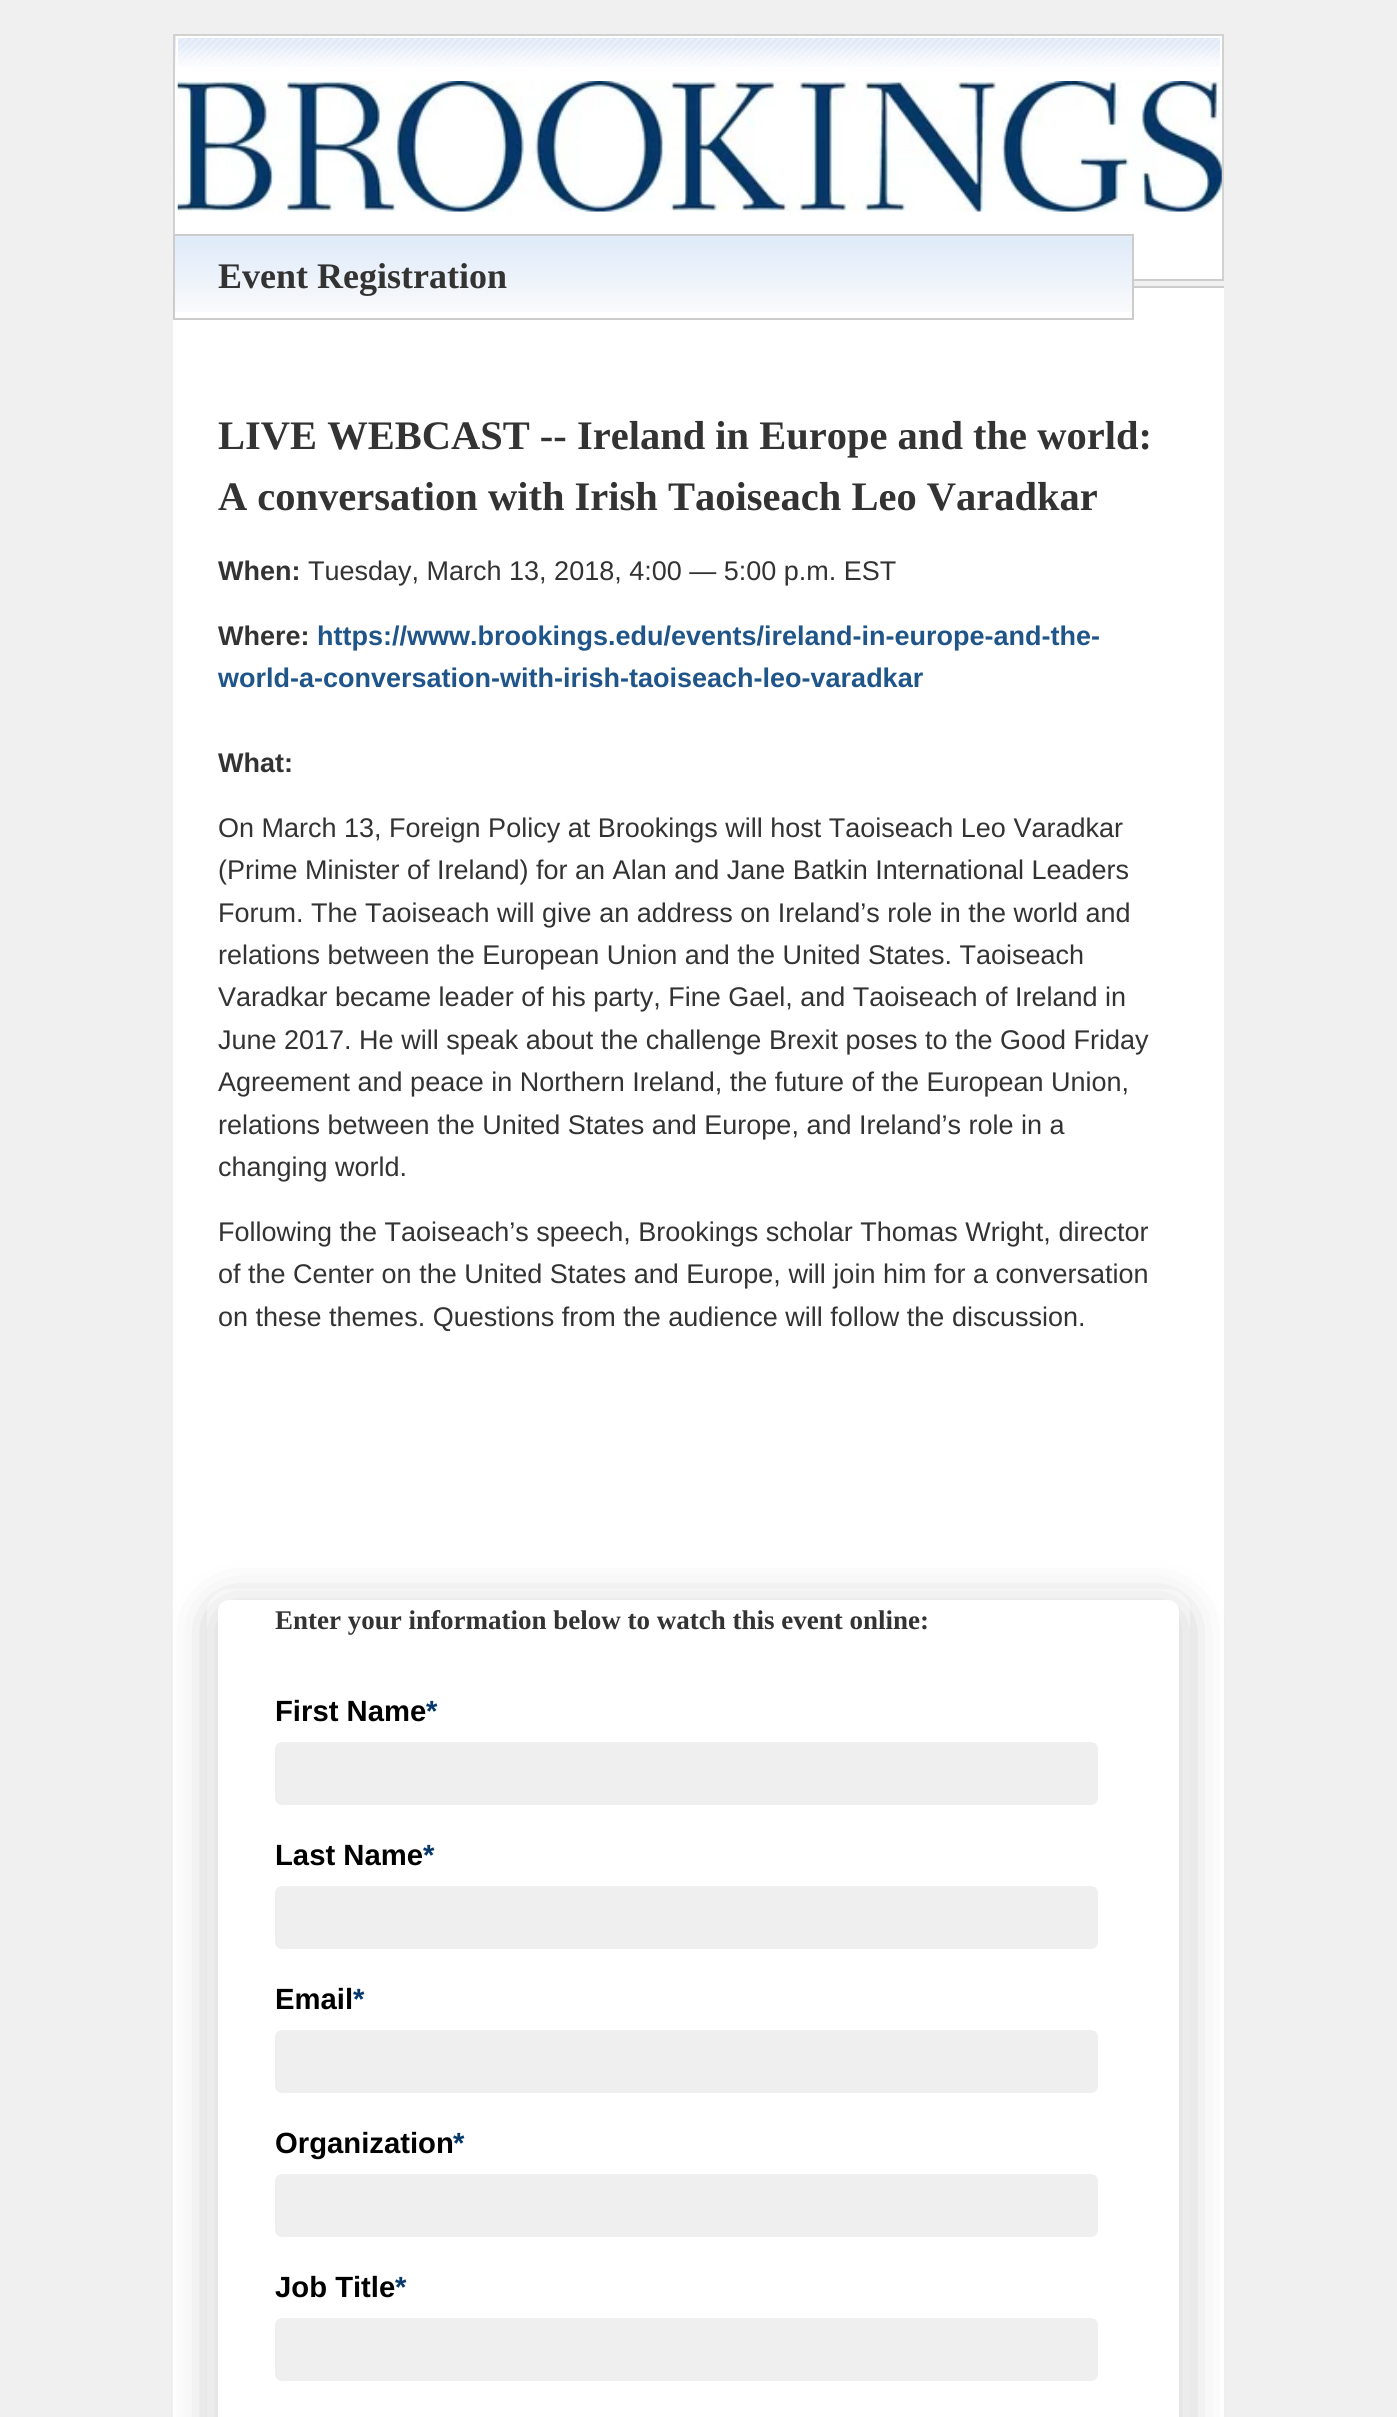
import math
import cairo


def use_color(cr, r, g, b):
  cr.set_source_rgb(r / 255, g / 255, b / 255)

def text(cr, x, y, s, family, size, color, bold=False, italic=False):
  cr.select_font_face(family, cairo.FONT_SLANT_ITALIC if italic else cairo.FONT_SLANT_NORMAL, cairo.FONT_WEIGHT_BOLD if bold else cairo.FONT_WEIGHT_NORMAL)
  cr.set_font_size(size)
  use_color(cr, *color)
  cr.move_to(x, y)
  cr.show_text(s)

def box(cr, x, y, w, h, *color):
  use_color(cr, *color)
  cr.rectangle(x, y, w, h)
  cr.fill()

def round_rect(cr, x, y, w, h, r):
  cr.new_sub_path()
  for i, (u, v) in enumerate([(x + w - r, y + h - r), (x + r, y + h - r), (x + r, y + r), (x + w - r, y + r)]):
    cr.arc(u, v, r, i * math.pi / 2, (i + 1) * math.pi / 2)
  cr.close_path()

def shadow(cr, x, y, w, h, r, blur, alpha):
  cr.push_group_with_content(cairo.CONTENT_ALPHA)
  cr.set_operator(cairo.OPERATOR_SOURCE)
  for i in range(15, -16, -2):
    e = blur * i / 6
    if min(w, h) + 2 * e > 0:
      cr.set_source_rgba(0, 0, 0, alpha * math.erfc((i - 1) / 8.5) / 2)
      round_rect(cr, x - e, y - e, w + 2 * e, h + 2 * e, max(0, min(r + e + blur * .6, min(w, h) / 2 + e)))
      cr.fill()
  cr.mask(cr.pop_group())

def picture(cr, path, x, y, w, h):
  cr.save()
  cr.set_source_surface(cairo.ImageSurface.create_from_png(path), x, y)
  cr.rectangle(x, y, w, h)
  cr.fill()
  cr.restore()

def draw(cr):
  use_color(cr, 240, 240, 240)
  cr.paint()
  box(cr, 175, 67, 1045, 210, 255, 255, 255)
  picture(cr, "img_01.png", 175, 36, 1045, 31)
  cr.rectangle(177, 37, 1044, 241)
  cr.stroke()
  box(cr, 173, 34, 1051, 2, 209, 209, 209)
  box(cr, 1222, 34, 2, 247, 209, 209, 209)
  box(cr, 1134, 279, 90, 2, 204, 204, 204)
  box(cr, 173, 34, 2, 200, 209, 209, 209)
  picture(cr, "img_02.png", 177, 81, 1045, 131)
  box(cr, 173, 288, 1051, 2129, 255, 255, 255)
  box(cr, 1134, 286, 90, 2, 204, 204, 204)
  picture(cr, "img_03.png", 175, 236, 957, 76)
  cr.rectangle(174, 235, 959, 84)
  cr.stroke()
  use_color(cr, 0, 0, 0)
  shadow(cr, 218, 1609, 961, 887, 11, 22.5, 0.33)
  round_rect(cr, 212.5, 1594.5, 972, 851, 17.5)
  cr.set_source_rgba(1, 1, 1, 0.4)
  cr.set_line_width(11)
  cr.stroke()
  use_color(cr, 255, 255, 255)
  round_rect(cr, 218, 1600, 961, 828, 11)
  cr.fill()
  use_color(cr, 239, 239, 239)
  round_rect(cr, 275, 1742, 823, 63, 7)
  cr.fill()
  round_rect(cr, 275, 1886, 823, 63, 7)
  cr.fill()
  round_rect(cr, 275, 2030, 823, 63, 7)
  cr.fill()
  round_rect(cr, 275, 2174, 823, 63, 7)
  cr.fill()
  round_rect(cr, 275, 2318, 823, 63, 7)
  cr.fill()
  text(cr, 218, 288, "Event Registration", "Liberation Serif", 36, (51, 51, 51), bold=True)
  text(cr, 218, 449, "LIVE WEBCAST -- Ireland in Europe and the world:", "Liberation Serif", 40.5, (51, 51, 51), bold=True)
  text(cr, 218, 510, "A conversation with Irish Taoiseach Leo Varadkar", "Liberation Serif", 40.5, (51, 51, 51), bold=True)
  text(cr, 218, 580, "When:", "Liberation Sans", 27, (51, 51, 51), bold=True)
  text(cr, 308, 580, "Tuesday, March 13, 2018, 4:00 — 5:00 p.m. EST", "Liberation Sans", 27, (51, 51, 51))
  text(cr, 218, 645, "Where:", "Liberation Sans", 27, (51, 51, 51), bold=True)
  text(cr, 317, 645, "https://www.brookings.edu/events/ireland-in-europe-and-the-", "Liberation Sans", 27, (32, 85, 138), bold=True)
  text(cr, 218, 687, "world-a-conversation-with-irish-taoiseach-leo-varadkar", "Liberation Sans", 27, (32, 85, 138), bold=True)
  text(cr, 218, 772, "What:", "Liberation Sans", 27, (51, 51, 51), bold=True)
  text(cr, 218, 837, "On March 13, Foreign Policy at Brookings will host Taoiseach Leo Varadkar", "Liberation Sans", 27, (51, 51, 51))
  text(cr, 218, 879, "(Prime Minister of Ireland) for an Alan and Jane Batkin International Leaders", "Liberation Sans", 27, (51, 51, 51))
  text(cr, 218, 922, "Forum. The Taoiseach will give an address on Ireland’s role in the world and", "Liberation Sans", 27, (51, 51, 51))
  text(cr, 218, 964, "relations between the European Union and the United States. Taoiseach", "Liberation Sans", 27, (51, 51, 51))
  text(cr, 218, 1006, "Varadkar became leader of his party, Fine Gael, and Taoiseach of Ireland in", "Liberation Sans", 27, (51, 51, 51))
  text(cr, 218, 1049, "June 2017. He will speak about the challenge Brexit poses to the Good Friday", "Liberation Sans", 27, (51, 51, 51))
  text(cr, 218, 1091, "Agreement and peace in Northern Ireland, the future of the European Union,", "Liberation Sans", 27, (51, 51, 51))
  text(cr, 218, 1134, "relations between the United States and Europe, and Ireland’s role in a", "Liberation Sans", 27, (51, 51, 51))
  text(cr, 218, 1176, "changing world.", "Liberation Sans", 27, (51, 51, 51))
  text(cr, 218, 1241, "Following the Taoiseach’s speech, Brookings scholar Thomas Wright, director", "Liberation Sans", 27, (51, 51, 51))
  text(cr, 218, 1283, "of the Center on the United States and Europe, will join him for a conversation", "Liberation Sans", 27, (51, 51, 51))
  text(cr, 218, 1326, "on these themes. Questions from the audience will follow the discussion.", "Liberation Sans", 27, (51, 51, 51))
  text(cr, 275, 1629, "Enter your information below to watch this event online:", "Liberation Serif", 27, (51, 51, 51), bold=True)
  text(cr, 275, 1721, "First Name", "Liberation Sans", 29.25, (0, 0, 0), bold=True)
  text(cr, 426, 1721, "*", "Liberation Sans", 29.25, (6, 56, 107), bold=True)
  text(cr, 275, 1865, "Last Name", "Liberation Sans", 29.25, (0, 0, 0), bold=True)
  text(cr, 423, 1865, "*", "Liberation Sans", 29.25, (6, 56, 107), bold=True)
  text(cr, 275, 2009, "Email", "Liberation Sans", 29.25, (0, 0, 0), bold=True)
  text(cr, 353, 2009, "*", "Liberation Sans", 29.25, (6, 56, 107), bold=True)
  text(cr, 275, 2153, "Organization", "Liberation Sans", 29.25, (0, 0, 0), bold=True)
  text(cr, 453, 2153, "*", "Liberation Sans", 29.25, (6, 56, 107), bold=True)
  text(cr, 275, 2297, "Job Title", "Liberation Sans", 29.25, (0, 0, 0), bold=True)
  text(cr, 395, 2297, "*", "Liberation Sans", 29.25, (6, 56, 107), bold=True)


surface = cairo.ImageSurface(cairo.FORMAT_RGB24, 1397, 2417)
cr = cairo.Context(surface)
options = cairo.FontOptions()
options.set_hint_metrics(cairo.HINT_METRICS_OFF)
options.set_hint_style(cairo.HINT_STYLE_NONE)
cr.set_font_options(options)
cr.set_miter_limit(4)
draw(cr)
surface.write_to_png("out.png")
